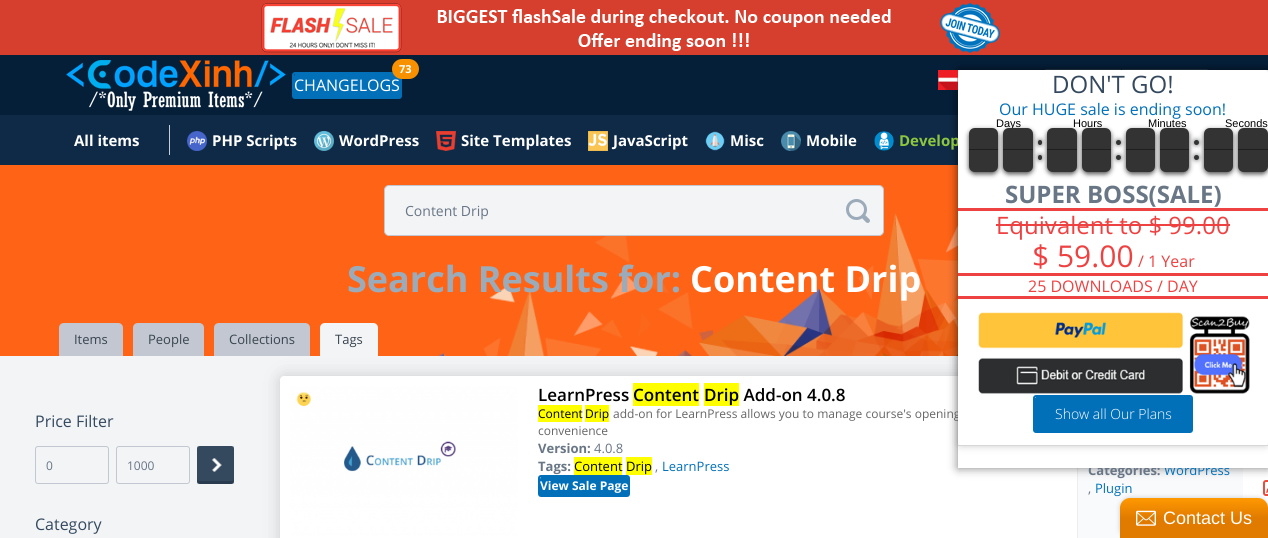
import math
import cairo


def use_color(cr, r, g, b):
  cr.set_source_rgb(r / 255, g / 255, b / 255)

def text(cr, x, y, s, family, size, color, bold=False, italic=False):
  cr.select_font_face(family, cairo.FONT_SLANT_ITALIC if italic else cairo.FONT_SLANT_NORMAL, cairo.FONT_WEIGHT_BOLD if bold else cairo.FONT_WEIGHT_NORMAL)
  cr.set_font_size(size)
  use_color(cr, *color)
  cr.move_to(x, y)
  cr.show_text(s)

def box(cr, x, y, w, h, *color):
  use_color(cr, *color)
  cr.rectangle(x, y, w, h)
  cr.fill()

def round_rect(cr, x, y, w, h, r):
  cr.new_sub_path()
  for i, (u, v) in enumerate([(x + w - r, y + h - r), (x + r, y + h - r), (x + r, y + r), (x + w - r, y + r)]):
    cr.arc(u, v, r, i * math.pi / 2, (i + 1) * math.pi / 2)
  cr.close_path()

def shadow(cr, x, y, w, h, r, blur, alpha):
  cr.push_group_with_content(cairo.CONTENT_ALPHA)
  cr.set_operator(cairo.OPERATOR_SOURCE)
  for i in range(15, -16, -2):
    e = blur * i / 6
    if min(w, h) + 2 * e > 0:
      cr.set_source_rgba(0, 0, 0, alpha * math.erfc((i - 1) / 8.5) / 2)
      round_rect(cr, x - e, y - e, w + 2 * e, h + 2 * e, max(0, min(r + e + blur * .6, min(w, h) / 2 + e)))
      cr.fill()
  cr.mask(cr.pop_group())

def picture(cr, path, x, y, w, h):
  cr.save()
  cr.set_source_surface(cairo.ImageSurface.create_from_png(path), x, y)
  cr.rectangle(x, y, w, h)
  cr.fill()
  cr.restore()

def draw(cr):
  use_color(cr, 243, 244, 246)
  cr.paint()
  box(cr, 0, 0, 1268, 55, 214, 62, 46)
  picture(cr, "img_01.png", 261, 3, 739, 50)
  box(cr, 0, 55, 1268, 60, 5, 31, 57)
  picture(cr, "img_02.png", 66, 60, 220, 51)
  use_color(cr, 1, 112, 185)
  cr.new_path()
  cr.move_to(295, 74)
  cr.line_to(399, 74)
  cr.curve_to(400, 74, 400, 74, 400, 75)
  cr.line_to(400, 96)
  cr.line_to(294, 96)
  cr.curve_to(294, 90, 293, 74, 295, 74)
  cr.close_path()
  cr.fill()
  round_rect(cr, 293, 73, 108, 25, 2)
  cr.stroke()
  use_color(cr, 247, 145, 0)
  round_rect(cr, 392, 59, 27, 20, 10)
  cr.fill()
  box(cr, 294, 96, 107, 1, 1, 112, 185)
  cr.new_path()
  cr.move_to(1047, 69.5)
  cr.line_to(1120.5, 69.5)
  cr.line_to(1120.5, 101.5)
  cr.line_to(1047, 101.5)
  cr.curve_to(1045.5, 101.5, 1044.5, 100.5, 1044.5, 99)
  cr.line_to(1044.5, 72)
  cr.curve_to(1044.5, 70.5, 1045.5, 69.5, 1047, 69.5)
  cr.close_path()
  use_color(cr, 41, 60, 79)
  cr.set_line_width(1)
  cr.stroke()
  cr.new_path()
  cr.move_to(1122.5, 69.5)
  cr.line_to(1206, 69.5)
  cr.curve_to(1207.5, 69.5, 1208.5, 70.5, 1208.5, 72)
  cr.line_to(1208.5, 99)
  cr.curve_to(1208.5, 100.5, 1207.5, 101.5, 1206, 101.5)
  cr.line_to(1122.5, 101.5)
  cr.close_path()
  cr.stroke()
  box(cr, 0, 115, 958, 50, 14, 42, 71)
  box(cr, 169, 125, 1, 30, 202, 205, 215)
  picture(cr, "img_03.png", 187, 131, 20, 20)
  picture(cr, "img_04.png", 314, 131, 20, 20)
  picture(cr, "img_05.png", 436, 131, 20, 20)
  picture(cr, "img_06.png", 588, 131, 20, 20)
  picture(cr, "img_07.png", 705, 131, 20, 20)
  picture(cr, "img_08.png", 781, 131, 20, 20)
  picture(cr, "img_09.png", 874, 131, 20, 20)
  use_color(cr, 204, 204, 204)
  shadow(cr, 280, 376, 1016, 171, 4, 8, 1)
  picture(cr, "img_12.png", 0, 165, 958, 191)
  use_color(cr, 255, 255, 255)
  round_rect(cr, 280, 376, 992, 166, 4)
  cr.fill()
  box(cr, 1077, 468, 1, 70, 237, 237, 237)
  box(cr, 1078, 468, 165, 70, 249, 250, 252)
  picture(cr, "img_17.png", 1263, 480, 5, 16)
  use_color(cr, 0, 0, 0)
  shadow(cr, 958, 70, 310, 398, 0, 5, 0.5)
  use_color(cr, 243, 244, 246)
  round_rect(cr, 384.5, 185.5, 499, 50, 4.5)
  cr.fill_preserve()
  use_color(cr, 195, 199, 209)
  cr.stroke()
  picture(cr, "img_13.png", 846, 199, 24, 24)
  use_color(cr, 194, 199, 209)
  cr.new_path()
  cr.move_to(64, 323)
  cr.line_to(118, 323)
  cr.curve_to(121, 323, 123, 325, 123, 328)
  cr.line_to(123, 356)
  cr.line_to(59, 356)
  cr.line_to(59, 328)
  cr.curve_to(59, 325, 61, 323, 64, 323)
  cr.close_path()
  cr.fill()
  cr.new_path()
  cr.move_to(138, 323)
  cr.line_to(199, 323)
  cr.curve_to(202, 323, 204, 325, 204, 328)
  cr.line_to(204, 356)
  cr.line_to(133, 356)
  cr.line_to(133, 328)
  cr.curve_to(133, 325, 135, 323, 138, 323)
  cr.close_path()
  cr.fill()
  cr.new_path()
  cr.move_to(219, 323)
  cr.line_to(305, 323)
  cr.curve_to(308, 323, 310, 325, 310, 328)
  cr.line_to(310, 356)
  cr.line_to(214, 356)
  cr.line_to(214, 328)
  cr.curve_to(214, 325, 216, 323, 219, 323)
  cr.close_path()
  cr.fill()
  use_color(cr, 243, 244, 246)
  cr.new_path()
  cr.move_to(325, 323)
  cr.line_to(373, 323)
  cr.curve_to(376, 323, 378, 325, 378, 328)
  cr.line_to(378, 356)
  cr.line_to(320, 356)
  cr.line_to(320, 328)
  cr.curve_to(320, 325, 322, 323, 325, 323)
  cr.close_path()
  cr.fill()
  round_rect(cr, 35.5, 446.5, 73, 37, 2.5)
  use_color(cr, 195, 199, 209)
  cr.stroke()
  round_rect(cr, 116.5, 446.5, 73, 37, 2.5)
  cr.stroke()
  picture(cr, "img_14.png", 197, 446, 37, 38)
  picture(cr, "img_15.png", 290, 386, 228, 150)
  picture(cr, "img_16.png", 296, 391, 15, 16)
  box(cr, 633, 383, 66, 23, 255, 255, 0)
  box(cr, 704, 383, 35, 23, 255, 255, 0)
  box(cr, 538, 405, 44, 17, 255, 255, 0)
  box(cr, 585, 405, 24, 17, 255, 255, 0)
  box(cr, 574, 457, 48, 18, 255, 255, 0)
  box(cr, 626, 457, 26, 18, 255, 255, 0)
  use_color(cr, 1, 112, 185)
  cr.new_path()
  cr.move_to(541, 477)
  cr.line_to(627, 477)
  cr.curve_to(628, 477, 628, 477, 628, 478)
  cr.line_to(628, 494)
  cr.line_to(540, 494)
  cr.curve_to(540, 491, 539, 477, 541, 477)
  cr.close_path()
  cr.fill()
  round_rect(cr, 539, 476, 90, 20, 2)
  cr.set_line_width(2)
  cr.stroke()
  box(cr, 540, 494, 89, 1, 1, 112, 185)
  use_color(cr, 0, 0, 0)
  shadow(cr, 1120, 498, 148, 40, 10, 2.5, 0.2)
  gradient = cairo.LinearGradient(1194, 498, 1194, 538)
  gradient.add_color_stop_rgba(0, 1, 0.6, 0, 1)
  gradient.add_color_stop_rgba(0.5, 0.882, 0.482, 0, 1)
  cr.set_source(gradient)
  cr.new_path()
  cr.move_to(1130, 498)
  cr.line_to(1258, 498)
  cr.curve_to(1263.5, 498, 1268, 502.5, 1268, 508)
  cr.line_to(1268, 538)
  cr.line_to(1120, 538)
  cr.line_to(1120, 508)
  cr.curve_to(1120, 502.5, 1124.5, 498, 1130, 498)
  cr.close_path()
  cr.fill()
  picture(cr, "img_18.png", 1136, 510, 20, 16)
  text(cr, 399, 73, "73", "Open Sans", 11, (255, 255, 255), bold=True)
  text(cr, 294, 91, "CHANGELOGS", "Open Sans", 16, (255, 255, 255))
  text(cr, 74, 146, "All items", "Open Sans", 15, (255, 255, 255), bold=True)
  text(cr, 212, 146, "PHP Scripts", "Open Sans", 15, (255, 255, 255), bold=True)
  text(cr, 339, 146, "WordPress", "Open Sans", 15, (255, 255, 255), bold=True)
  text(cr, 461, 146, "Site Templates", "Open Sans", 15, (255, 255, 255), bold=True)
  text(cr, 613, 146, "JavaScript", "Open Sans", 15, (255, 255, 255), bold=True)
  text(cr, 730, 146, "Misc", "Open Sans", 15, (255, 255, 255), bold=True)
  text(cr, 806, 146, "Mobile", "Open Sans", 15, (255, 255, 255), bold=True)
  text(cr, 899, 146, "Develop", "Open Sans", 15, (141, 198, 63), bold=True)
  text(cr, 405, 216, "Content Drip", "Open Sans", 14, (104, 118, 134))
  text(cr, 347, 292, "Search Results for:", "Open Sans", 36, (155, 171, 186), bold=True)
  text(cr, 690, 292, "Content Drip", "Open Sans", 36, (255, 255, 255), bold=True)
  text(cr, 74, 344, "Items", "Open Sans", 13, (56, 68, 79))
  text(cr, 148, 344, "People", "Open Sans", 13, (56, 68, 79))
  text(cr, 229, 344, "Collections", "Open Sans", 13, (56, 68, 79))
  text(cr, 335, 344, "Tags", "Open Sans", 13, (56, 68, 79))
  text(cr, 35, 427, "Price Filter", "Open Sans", 16, (52, 73, 94))
  text(cr, 46, 470, "0", "Open Sans", 12, (104, 118, 134))
  text(cr, 127, 470, "1000", "Open Sans", 12, (104, 118, 134))
  text(cr, 35, 530, "Category", "Open Sans", 16, (52, 73, 94))
  text(cr, 538, 401, "LearnPress", "Open Sans SemiBold", 17, (0, 0, 0))
  text(cr, 633, 401, "Content", "Open Sans SemiBold", 17, (0, 0, 0))
  text(cr, 704, 401, "Drip Add-on 4.0.8", "Open Sans SemiBold", 17, (0, 0, 0))
  text(cr, 538, 418, "Content", "Open Sans", 12, (0, 0, 0))
  text(cr, 585, 418, "Drip", "Open Sans", 12, (0, 0, 0))
  text(cr, 613, 418, "add-on for LearnPress allows you to manage course's opening", "Open Sans", 12, (102, 102, 102))
  text(cr, 538, 435, "convenience", "Open Sans", 12, (102, 102, 102))
  text(cr, 538, 453, "Version:", "Open Sans", 13, (104, 118, 134), bold=True)
  text(cr, 594, 453, "4.0.8", "Open Sans", 13, (104, 118, 134))
  text(cr, 538, 471, "Tags:", "Open Sans", 13, (104, 118, 134), bold=True)
  text(cr, 574, 471, "Content", "Open Sans", 13, (0, 0, 0))
  text(cr, 626, 471, "Drip", "Open Sans", 13, (0, 0, 0))
  text(cr, 655, 471, ",", "Open Sans", 13, (104, 118, 134))
  text(cr, 662, 471, "LearnPress", "Open Sans", 13, (1, 112, 185))
  text(cr, 540, 490, "View Sale Page", "Open Sans", 12, (255, 255, 255), bold=True)
  text(cr, 1088, 475, "Categories:", "Open Sans", 13, (104, 118, 134), bold=True)
  text(cr, 1164, 475, "WordPress", "Open Sans", 13, (1, 112, 185))
  box(cr, 958, 70, 310, 398, 255, 255, 255)
  use_color(cr, 0, 0, 0)
  shadow(cr, 958, 70, 310, 376, 3, 4, 0.2)
  picture(cr, "img_10.png", 938, 70, 20, 20)
  use_color(cr, 255, 255, 255)
  round_rect(cr, 958, 70, 310, 376, 3)
  cr.fill()
  use_color(cr, 0, 0, 0)
  shadow(cr, 1238, 130, 30, 44, 6, 2.5, 0.7)
  shadow(cr, 1194, 155, 5, 5, 2.5, 2.5, 0.5)
  shadow(cr, 1160, 130, 29, 44, 6, 2.5, 0.7)
  use_color(cr, 50, 52, 52)
  cr.arc(1196.5, 157.5, 2.5, 0, 2 * math.pi)
  cr.fill()
  use_color(cr, 0, 0, 0)
  shadow(cr, 1194, 140, 5, 5, 2.5, 2.5, 0.5)
  use_color(cr, 50, 52, 52)
  cr.arc(1196.5, 142.5, 2.5, 0, 2 * math.pi)
  cr.fill()
  use_color(cr, 0, 0, 0)
  shadow(cr, 1204, 130, 29, 44, 6, 2.5, 0.7)
  use_color(cr, 51, 51, 51)
  cr.new_path()
  cr.move_to(1238, 150)
  cr.line_to(1268, 150)
  cr.line_to(1268, 166)
  cr.curve_to(1268, 169.5, 1265.5, 172, 1262, 172)
  cr.line_to(1244, 172)
  cr.curve_to(1240.5, 172, 1238, 169.5, 1238, 166)
  cr.close_path()
  cr.fill()
  cr.new_path()
  cr.move_to(1244, 128)
  cr.line_to(1262, 128)
  cr.curve_to(1265.5, 128, 1268, 130.5, 1268, 134)
  cr.line_to(1268, 150)
  cr.line_to(1238, 150)
  cr.line_to(1238, 134)
  cr.curve_to(1238, 130.5, 1240.5, 128, 1244, 128)
  cr.close_path()
  cr.fill()
  cr.set_source_rgba(0, 0, 0, 0.4)
  cr.rectangle(1238, 149, 30, 1)
  cr.fill()
  use_color(cr, 51, 51, 51)
  cr.new_path()
  cr.move_to(1204, 150)
  cr.line_to(1233, 150)
  cr.line_to(1233, 166)
  cr.curve_to(1233, 169.5, 1230.5, 172, 1227, 172)
  cr.line_to(1210, 172)
  cr.curve_to(1206.5, 172, 1204, 169.5, 1204, 166)
  cr.close_path()
  cr.fill()
  cr.new_path()
  cr.move_to(1210, 128)
  cr.line_to(1227, 128)
  cr.curve_to(1230.5, 128, 1233, 130.5, 1233, 134)
  cr.line_to(1233, 150)
  cr.line_to(1204, 150)
  cr.line_to(1204, 134)
  cr.curve_to(1204, 130.5, 1206.5, 128, 1210, 128)
  cr.close_path()
  cr.fill()
  cr.set_source_rgba(0, 0, 0, 0.4)
  cr.rectangle(1204, 149, 29, 1)
  cr.fill()
  use_color(cr, 0, 0, 0)
  shadow(cr, 1116, 155, 5, 5, 2.5, 2.5, 0.5)
  shadow(cr, 1082, 130, 29, 44, 6, 2.5, 0.7)
  use_color(cr, 50, 52, 52)
  cr.arc(1118.5, 157.5, 2.5, 0, 2 * math.pi)
  cr.fill()
  use_color(cr, 0, 0, 0)
  shadow(cr, 1116, 140, 5, 5, 2.5, 2.5, 0.5)
  use_color(cr, 50, 52, 52)
  cr.arc(1118.5, 142.5, 2.5, 0, 2 * math.pi)
  cr.fill()
  use_color(cr, 0, 0, 0)
  shadow(cr, 1126, 130, 29, 44, 6, 2.5, 0.7)
  use_color(cr, 51, 51, 51)
  cr.new_path()
  cr.move_to(1160, 150)
  cr.line_to(1189, 150)
  cr.line_to(1189, 166)
  cr.curve_to(1189, 169.5, 1186.5, 172, 1183, 172)
  cr.line_to(1166, 172)
  cr.curve_to(1162.5, 172, 1160, 169.5, 1160, 166)
  cr.close_path()
  cr.fill()
  cr.new_path()
  cr.move_to(1166, 128)
  cr.line_to(1183, 128)
  cr.curve_to(1186.5, 128, 1189, 130.5, 1189, 134)
  cr.line_to(1189, 150)
  cr.line_to(1160, 150)
  cr.line_to(1160, 134)
  cr.curve_to(1160, 130.5, 1162.5, 128, 1166, 128)
  cr.close_path()
  cr.fill()
  cr.set_source_rgba(0, 0, 0, 0.4)
  cr.rectangle(1160, 149, 29, 1)
  cr.fill()
  use_color(cr, 51, 51, 51)
  cr.new_path()
  cr.move_to(1126, 150)
  cr.line_to(1155, 150)
  cr.line_to(1155, 166)
  cr.curve_to(1155, 169.5, 1152.5, 172, 1149, 172)
  cr.line_to(1132, 172)
  cr.curve_to(1128.5, 172, 1126, 169.5, 1126, 166)
  cr.close_path()
  cr.fill()
  cr.new_path()
  cr.move_to(1132, 128)
  cr.line_to(1149, 128)
  cr.curve_to(1152.5, 128, 1155, 130.5, 1155, 134)
  cr.line_to(1155, 150)
  cr.line_to(1126, 150)
  cr.line_to(1126, 134)
  cr.curve_to(1126, 130.5, 1128.5, 128, 1132, 128)
  cr.close_path()
  cr.fill()
  cr.set_source_rgba(0, 0, 0, 0.4)
  cr.rectangle(1126, 149, 29, 1)
  cr.fill()
  use_color(cr, 0, 0, 0)
  shadow(cr, 1038, 155, 4, 5, 2, 2.5, 0.5)
  shadow(cr, 1003, 130, 30, 44, 6, 2.5, 0.7)
  use_color(cr, 50, 52, 52)
  round_rect(cr, 1038, 155, 4, 5, 2)
  cr.fill()
  use_color(cr, 0, 0, 0)
  shadow(cr, 1038, 140, 4, 5, 2, 2.5, 0.5)
  use_color(cr, 50, 52, 52)
  round_rect(cr, 1038, 140, 4, 5, 2)
  cr.fill()
  use_color(cr, 0, 0, 0)
  shadow(cr, 1047, 130, 30, 44, 6, 2.5, 0.7)
  use_color(cr, 51, 51, 51)
  cr.new_path()
  cr.move_to(1082, 150)
  cr.line_to(1111, 150)
  cr.line_to(1111, 166)
  cr.curve_to(1111, 169.5, 1108.5, 172, 1105, 172)
  cr.line_to(1088, 172)
  cr.curve_to(1084.5, 172, 1082, 169.5, 1082, 166)
  cr.close_path()
  cr.fill()
  cr.new_path()
  cr.move_to(1088, 128)
  cr.line_to(1105, 128)
  cr.curve_to(1108.5, 128, 1111, 130.5, 1111, 134)
  cr.line_to(1111, 150)
  cr.line_to(1082, 150)
  cr.line_to(1082, 134)
  cr.curve_to(1082, 130.5, 1084.5, 128, 1088, 128)
  cr.close_path()
  cr.fill()
  cr.set_source_rgba(0, 0, 0, 0.4)
  cr.rectangle(1082, 149, 29, 1)
  cr.fill()
  use_color(cr, 51, 51, 51)
  cr.new_path()
  cr.move_to(1047, 150)
  cr.line_to(1077, 150)
  cr.line_to(1077, 166)
  cr.curve_to(1077, 169.5, 1074.5, 172, 1071, 172)
  cr.line_to(1053, 172)
  cr.curve_to(1049.5, 172, 1047, 169.5, 1047, 166)
  cr.close_path()
  cr.fill()
  cr.new_path()
  cr.move_to(1053, 128)
  cr.line_to(1071, 128)
  cr.curve_to(1074.5, 128, 1077, 130.5, 1077, 134)
  cr.line_to(1077, 150)
  cr.line_to(1047, 150)
  cr.line_to(1047, 134)
  cr.curve_to(1047, 130.5, 1049.5, 128, 1053, 128)
  cr.close_path()
  cr.fill()
  cr.set_source_rgba(0, 0, 0, 0.4)
  cr.rectangle(1047, 149, 30, 1)
  cr.fill()
  use_color(cr, 0, 0, 0)
  shadow(cr, 969, 130, 29, 44, 6, 2.5, 0.7)
  use_color(cr, 51, 51, 51)
  cr.new_path()
  cr.move_to(1003, 150)
  cr.line_to(1033, 150)
  cr.line_to(1033, 166)
  cr.curve_to(1033, 169.5, 1030.5, 172, 1027, 172)
  cr.line_to(1009, 172)
  cr.curve_to(1005.5, 172, 1003, 169.5, 1003, 166)
  cr.close_path()
  cr.fill()
  text(cr, 996, 127, "Days", "Liberation Sans", 11, (0, 0, 0))
  use_color(cr, 51, 51, 51)
  cr.new_path()
  cr.move_to(1009, 128)
  cr.line_to(1027, 128)
  cr.curve_to(1030.5, 128, 1033, 130.5, 1033, 134)
  cr.line_to(1033, 150)
  cr.line_to(1003, 150)
  cr.line_to(1003, 134)
  cr.curve_to(1003, 130.5, 1005.5, 128, 1009, 128)
  cr.close_path()
  cr.fill()
  cr.set_source_rgba(0, 0, 0, 0.4)
  cr.rectangle(1003, 149, 30, 1)
  cr.fill()
  use_color(cr, 51, 51, 51)
  cr.new_path()
  cr.move_to(969, 150)
  cr.line_to(998, 150)
  cr.line_to(998, 166)
  cr.curve_to(998, 169.5, 995.5, 172, 992, 172)
  cr.line_to(975, 172)
  cr.curve_to(971.5, 172, 969, 169.5, 969, 166)
  cr.close_path()
  cr.fill()
  cr.new_path()
  cr.move_to(975, 128)
  cr.line_to(992, 128)
  cr.curve_to(995.5, 128, 998, 130.5, 998, 134)
  cr.line_to(998, 150)
  cr.line_to(969, 150)
  cr.line_to(969, 134)
  cr.curve_to(969, 130.5, 971.5, 128, 975, 128)
  cr.close_path()
  cr.fill()
  cr.set_source_rgba(0, 0, 0, 0.4)
  cr.rectangle(969, 149, 29, 1)
  cr.fill()
  text(cr, 1028, 292, "25 DOWNLOADS / DAY", "Open Sans", 16, (238, 66, 66))
  box(cr, 958, 296, 310, 3, 238, 66, 66)
  text(cr, 1005, 203, "SUPER BOSS(SALE)", "Open Sans", 24, (104, 118, 134), bold=True)
  box(cr, 958, 208, 310, 3, 238, 66, 66)
  text(cr, 1225, 127, "Seconds", "Liberation Sans", 11, (0, 0, 0))
  text(cr, 1148, 127, "Minutes", "Liberation Sans", 11, (0, 0, 0))
  text(cr, 1073, 127, "Hours", "Liberation Sans", 11, (0, 0, 0))
  use_color(cr, 1, 112, 185)
  cr.new_path()
  cr.move_to(1036, 397)
  cr.line_to(1190, 397)
  cr.curve_to(1191, 397, 1191, 397, 1191, 398)
  cr.line_to(1191, 430)
  cr.line_to(1035, 430)
  cr.line_to(1035, 398)
  cr.close_path()
  cr.fill()
  round_rect(cr, 1034, 396, 158, 36, 2)
  cr.stroke()
  text(cr, 1055, 419, "Show all Our Plans", "Open Sans Light", 14, (255, 255, 255))
  box(cr, 1035, 430, 157, 1, 1, 112, 185)
  picture(cr, "img_11.png", 978, 312, 272, 82)
  text(cr, 1138, 267, "/ 1 Year", "Open Sans", 16, (238, 66, 66))
  text(cr, 1032, 267, "$ 59.00", "Open Sans", 30, (238, 66, 66))
  box(cr, 996, 224, 234, 2, 238, 66, 66)
  text(cr, 996, 234, "Equivalent to $ 99.00", "Open Sans", 24, (238, 66, 66))
  text(cr, 999, 115, "Our HUGE sale is ending soon!", "Open Sans", 16, (1, 112, 185))
  text(cr, 1052, 93, "DON'T GO!", "Open Sans", 24, (52, 73, 94))
  box(cr, 958, 445, 310, 1, 215, 215, 215)
  box(cr, 958, 273, 310, 3, 238, 66, 66)
  text(cr, 1088, 493, ",", "Open Sans", 13, (104, 118, 134))
  text(cr, 1095, 493, "Plugin", "Open Sans", 13, (1, 112, 185))
  text(cr, 1163, 524, "Contact Us", "Liberation Sans", 18, (255, 255, 255))


surface = cairo.ImageSurface(cairo.FORMAT_RGB24, 1268, 538)
cr = cairo.Context(surface)
options = cairo.FontOptions()
options.set_hint_metrics(cairo.HINT_METRICS_OFF)
options.set_hint_style(cairo.HINT_STYLE_NONE)
cr.set_font_options(options)
cr.set_miter_limit(4)
draw(cr)
surface.write_to_png("out.png")
